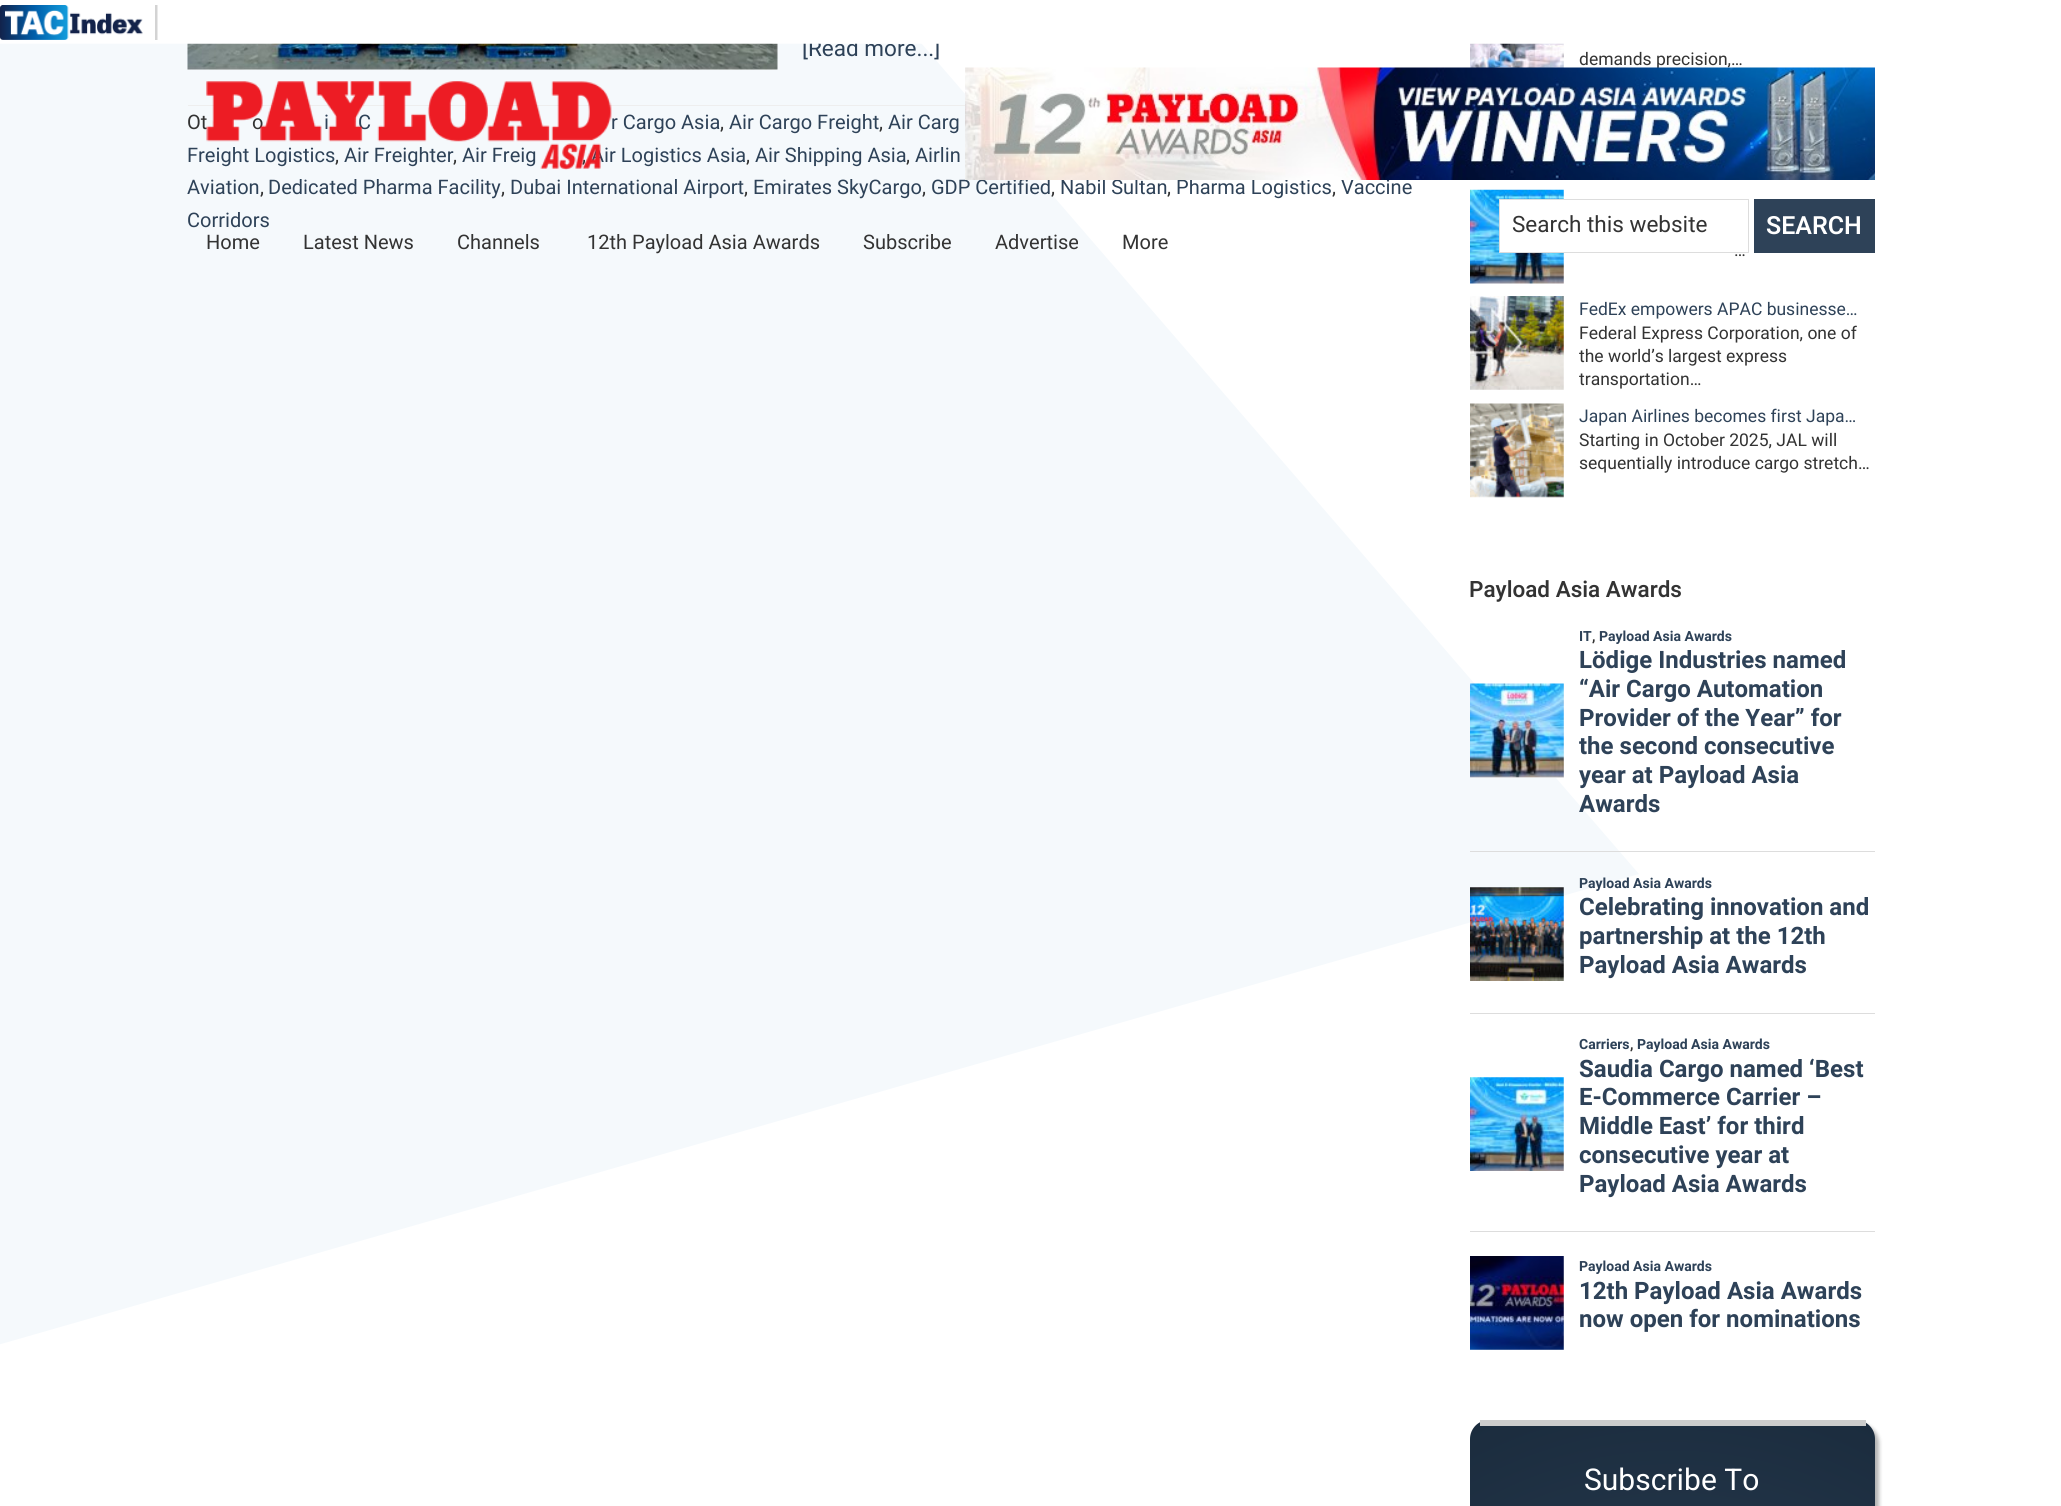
import math
import cairo


def use_color(cr, r, g, b):
  cr.set_source_rgb(r / 255, g / 255, b / 255)

def text(cr, x, y, s, family, size, color, bold=False, italic=False):
  cr.select_font_face(family, cairo.FONT_SLANT_ITALIC if italic else cairo.FONT_SLANT_NORMAL, cairo.FONT_WEIGHT_BOLD if bold else cairo.FONT_WEIGHT_NORMAL)
  cr.set_font_size(size)
  use_color(cr, *color)
  cr.move_to(x, y)
  cr.show_text(s)

def box(cr, x, y, w, h, *color):
  use_color(cr, *color)
  cr.rectangle(x, y, w, h)
  cr.fill()

def round_rect(cr, x, y, w, h, r):
  cr.new_sub_path()
  for i, (u, v) in enumerate([(x + w - r, y + h - r), (x + r, y + h - r), (x + r, y + r), (x + w - r, y + r)]):
    cr.arc(u, v, r, i * math.pi / 2, (i + 1) * math.pi / 2)
  cr.close_path()

def shadow(cr, x, y, w, h, r, blur, alpha):
  cr.push_group_with_content(cairo.CONTENT_ALPHA)
  cr.set_operator(cairo.OPERATOR_SOURCE)
  for i in range(15, -16, -2):
    e = blur * i / 6
    if min(w, h) + 2 * e > 0:
      cr.set_source_rgba(0, 0, 0, alpha * math.erfc((i - 1) / 8.5) / 2)
      round_rect(cr, x - e, y - e, w + 2 * e, h + 2 * e, max(0, min(r + e + blur * .6, min(w, h) / 2 + e)))
      cr.fill()
  cr.mask(cr.pop_group())

def picture(cr, path, x, y, w, h):
  cr.save()
  cr.set_source_surface(cairo.ImageSurface.create_from_png(path), x, y)
  cr.rectangle(x, y, w, h)
  cr.fill()
  cr.restore()

def draw(cr):
  use_color(cr, 255, 255, 255)
  cr.paint()
  use_color(cr, 245, 249, 252)
  cr.new_path()
  cr.move_to(1639, 874)
  cr.line_to(-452, 1474)
  cr.line_to(198, -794)
  cr.close_path()
  cr.fill()
  picture(cr, "img_01.png", 187, 43, 591, 27)
  box(cr, 188, 105, 777, 1, 238, 238, 238)
  picture(cr, "img_02.png", 1470, 43, 94, 25)
  picture(cr, "img_03.png", 1470, 189, 94, 95)
  picture(cr, "img_04.png", 1470, 296, 94, 94)
  picture(cr, "img_05.png", 1470, 403, 94, 95)
  box(cr, 1470, 851, 405, 1, 221, 221, 221)
  box(cr, 1470, 684, 94, 94, 240, 240, 240)
  picture(cr, "img_06.png", 1470, 683, 94, 95)
  box(cr, 1470, 1013, 405, 1, 221, 221, 221)
  picture(cr, "img_07.png", 1470, 887, 94, 94)
  box(cr, 1470, 1231, 405, 1, 221, 221, 221)
  picture(cr, "img_08.png", 1470, 1077, 94, 94)
  box(cr, 1470, 1256, 94, 94, 240, 240, 240)
  picture(cr, "img_09.png", 1470, 1256, 94, 94)
  use_color(cr, 0, 0, 0)
  shadow(cr, 1474, 1424, 405, 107, 19, 2, 0.3)
  cr.save()
  round_rect(cr, 1470, 1420, 405, 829, 19)
  cr.clip()
  gradient = cairo.RadialGradient(1673, 1015, 0, 1673, 1015, 458)
  gradient.add_color_stop_rgba(0, 0.18, 0.259, 0.345, 1)
  gradient.add_color_stop_rgba(1, 0.106, 0.173, 0.243, 1)
  cr.set_source(gradient)
  cr.rectangle(1470, 1422, 405, 4)
  cr.fill()
  gradient = cairo.RadialGradient(1673, 1838, 0, 1673, 1838, 458)
  gradient.add_color_stop_rgba(0, 0.18, 0.259, 0.345, 1)
  gradient.add_color_stop_rgba(1, 0.106, 0.173, 0.243, 1)
  cr.set_source(gradient)
  cr.new_path()
  cr.move_to(1470, 1426)
  cr.line_to(1875, 1426)
  cr.line_to(1875, 1506)
  cr.curve_to(1875, 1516.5, 1866.5, 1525, 1856, 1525)
  cr.line_to(1489, 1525)
  cr.curve_to(1478.5, 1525, 1470, 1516.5, 1470, 1506)
  cr.close_path()
  cr.fill()
  cr.restore()
  box(cr, 1480, 1420, 386, 6, 204, 204, 204)
  box(cr, 1500, 200, 64, 52, 255, 255, 255)
  cr.rectangle(1499.5, 199.5, 249, 53)
  use_color(cr, 221, 221, 221)
  cr.set_line_width(1)
  cr.stroke()
  box(cr, 1754, 199, 121, 54, 46, 66, 88)
  text(cr, 802, 56, "[Read more...]", "Heebo", 22.5, (46, 66, 88))
  text(cr, 187, 129, "Ot", "Heebo", 20, (51, 51, 51))
  text(cr, 252, 129, "o", "Heebo", 20, (51, 51, 51))
  text(cr, 324, 129, "i", "Heebo", 20, (46, 66, 88))
  text(cr, 358, 129, "C", "Heebo", 20, (46, 66, 88))
  text(cr, 611, 129, "r Cargo Asia", "Heebo", 20, (46, 66, 88))
  text(cr, 720, 129, ",", "Heebo", 20, (51, 51, 51))
  text(cr, 729, 129, "Air Cargo Freight", "Heebo", 20, (46, 66, 88))
  text(cr, 879, 129, ",", "Heebo", 20, (51, 51, 51))
  text(cr, 888, 129, "Air Carg", "Heebo", 20, (46, 66, 88))
  text(cr, 187, 162, "Freight Logistics", "Heebo", 20, (46, 66, 88))
  text(cr, 335, 162, ",", "Heebo", 20, (51, 51, 51))
  text(cr, 344, 162, "Air Freighter", "Heebo", 20, (46, 66, 88))
  text(cr, 453, 162, ",", "Heebo", 20, (51, 51, 51))
  text(cr, 462, 162, "Air Freig", "Heebo", 20, (46, 66, 88))
  text(cr, 582, 162, ",", "Heebo", 20, (51, 51, 51))
  text(cr, 591, 162, "Air Logistics Asia", "Heebo", 20, (46, 66, 88))
  text(cr, 746, 162, ",", "Heebo", 20, (51, 51, 51))
  text(cr, 755, 162, "Air Shipping Asia", "Heebo", 20, (46, 66, 88))
  text(cr, 906, 162, ",", "Heebo", 20, (51, 51, 51))
  text(cr, 915, 162, "Airlin", "Heebo", 20, (46, 66, 88))
  text(cr, 187, 194, "Aviation", "Heebo", 20, (46, 66, 88))
  text(cr, 260, 194, ",", "Heebo", 20, (51, 51, 51))
  text(cr, 268, 194, "Dedicated Pharma Facility", "Heebo", 20, (46, 66, 88))
  text(cr, 501, 194, ",", "Heebo", 20, (51, 51, 51))
  text(cr, 510, 194, "Dubai International Airport", "Heebo", 20, (46, 66, 88))
  text(cr, 744, 194, ",", "Heebo", 20, (51, 51, 51))
  text(cr, 753, 194, "Emirates SkyCargo", "Heebo", 20, (46, 66, 88))
  text(cr, 922, 194, ",", "Heebo", 20, (51, 51, 51))
  text(cr, 931, 194, "GDP Certified", "Heebo", 20, (46, 66, 88))
  text(cr, 1051, 194, ",", "Heebo", 20, (51, 51, 51))
  text(cr, 1060, 194, "Nabil Sultan", "Heebo", 20, (46, 66, 88))
  text(cr, 1167, 194, ",", "Heebo", 20, (51, 51, 51))
  text(cr, 1176, 194, "Pharma Logistics", "Heebo", 20, (46, 66, 88))
  text(cr, 1332, 194, ",", "Heebo", 20, (51, 51, 51))
  text(cr, 1341, 194, "Vaccine", "Heebo", 20, (46, 66, 88))
  text(cr, 187, 227, "Corridors", "Heebo", 20, (46, 66, 88))
  text(cr, 1579, 65, "demands precision,…", "Heebo", 17.5, (51, 51, 51))
  text(cr, 1734, 256, "…", "Heebo", 17.5, (51, 51, 51))
  text(cr, 1579, 315, "FedEx empowers APAC businesse…", "Heebo", 17.5, (46, 66, 88))
  text(cr, 1579, 339, "Federal Express Corporation, one of", "Heebo", 17.5, (51, 51, 51))
  text(cr, 1579, 362, "the world’s largest express", "Heebo", 17.5, (51, 51, 51))
  text(cr, 1579, 385, "transportation…", "Heebo", 17.5, (51, 51, 51))
  text(cr, 1579, 422, "Japan Airlines becomes first Japa…", "Heebo", 17.5, (46, 66, 88))
  text(cr, 1579, 446, "Starting in October 2025, JAL will", "Heebo", 17.5, (51, 51, 51))
  text(cr, 1579, 469, "sequentially introduce cargo stretch…", "Heebo", 17.5, (51, 51, 51))
  text(cr, 1469, 597, "Payload Asia Awards", "Heebo SemiBold", 22.5, (51, 51, 51))
  text(cr, 1579, 641, "IT", "Heebo", 14, (46, 66, 88), bold=True)
  text(cr, 1599, 641, "Payload Asia Awards", "Heebo", 14, (46, 66, 88), bold=True)
  text(cr, 1592, 641, ",", "Heebo", 14, (51, 51, 51), bold=True)
  text(cr, 1579, 668, "Lödige Industries named", "Heebo", 24, (46, 66, 88), bold=True)
  text(cr, 1579, 697, "“Air Cargo Automation", "Heebo", 24, (46, 66, 88), bold=True)
  text(cr, 1579, 726, "Provider of the Year” for", "Heebo", 24, (46, 66, 88), bold=True)
  text(cr, 1579, 754, "the second consecutive", "Heebo", 24, (46, 66, 88), bold=True)
  text(cr, 1579, 783, "year at Payload Asia", "Heebo", 24, (46, 66, 88), bold=True)
  text(cr, 1579, 812, "Awards", "Heebo", 24, (46, 66, 88), bold=True)
  text(cr, 1579, 888, "Payload Asia Awards", "Heebo", 14, (46, 66, 88), bold=True)
  text(cr, 1579, 915, "Celebrating innovation and", "Heebo", 24, (46, 66, 88), bold=True)
  text(cr, 1579, 944, "partnership at the 12th", "Heebo", 24, (46, 66, 88), bold=True)
  text(cr, 1579, 973, "Payload Asia Awards", "Heebo", 24, (46, 66, 88), bold=True)
  text(cr, 1579, 1049, "Carriers", "Heebo", 14, (46, 66, 88), bold=True)
  text(cr, 1630, 1049, ",", "Heebo", 14, (51, 51, 51), bold=True)
  text(cr, 1637, 1049, "Payload Asia Awards", "Heebo", 14, (46, 66, 88), bold=True)
  text(cr, 1579, 1077, "Saudia Cargo named ‘Best", "Heebo", 24, (46, 66, 88), bold=True)
  text(cr, 1579, 1105, "E-Commerce Carrier –", "Heebo", 24, (46, 66, 88), bold=True)
  text(cr, 1579, 1134, "Middle East’ for third", "Heebo", 24, (46, 66, 88), bold=True)
  text(cr, 1579, 1163, "consecutive year at", "Heebo", 24, (46, 66, 88), bold=True)
  text(cr, 1579, 1192, "Payload Asia Awards", "Heebo", 24, (46, 66, 88), bold=True)
  text(cr, 1579, 1271, "Payload Asia Awards", "Heebo", 14, (46, 66, 88), bold=True)
  text(cr, 1579, 1299, "12th Payload Asia Awards", "Heebo", 24, (46, 66, 88), bold=True)
  text(cr, 1579, 1327, "now open for nominations", "Heebo", 24, (46, 66, 88), bold=True)
  text(cr, 1584, 1490, "Subscribe To", "Heebo", 30, (255, 255, 255))
  picture(cr, "img_10.png", 0, 0, 1870, 44)
  picture(cr, "img_11.png", 206, 81, 406, 89)
  picture(cr, "img_12.png", 965, 67, 910, 113)
  text(cr, 1512, 232, "Search this website", "Heebo", 22.5, (51, 51, 51))
  text(cr, 1766, 234, "SEARCH", "Heebo SemiBold", 25, (255, 255, 255))
  text(cr, 206, 249, "Home", "Heebo", 20, (51, 51, 51))
  text(cr, 303, 249, "Latest News", "Heebo", 20, (51, 51, 51))
  text(cr, 457, 249, "Channels", "Heebo", 20, (51, 51, 51))
  text(cr, 587, 249, "12th Payload Asia Awards", "Heebo", 20, (51, 51, 51))
  text(cr, 863, 249, "Subscribe", "Heebo", 20, (51, 51, 51))
  text(cr, 995, 249, "Advertise", "Heebo", 20, (51, 51, 51))
  text(cr, 1122, 249, "More", "Heebo", 20, (51, 51, 51))


surface = cairo.ImageSurface(cairo.FORMAT_RGB24, 2061, 1506)
cr = cairo.Context(surface)
options = cairo.FontOptions()
options.set_hint_metrics(cairo.HINT_METRICS_OFF)
options.set_hint_style(cairo.HINT_STYLE_NONE)
cr.set_font_options(options)
cr.set_miter_limit(4)
draw(cr)
surface.write_to_png("out.png")
